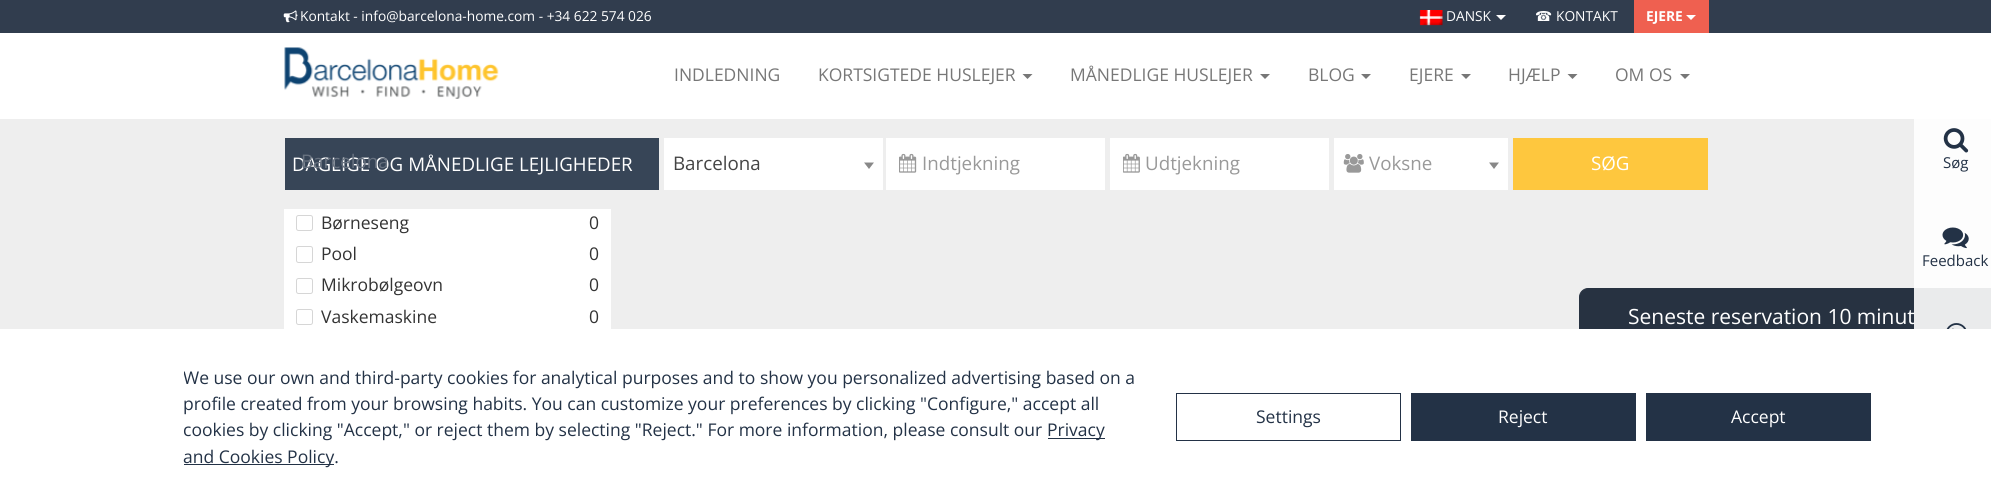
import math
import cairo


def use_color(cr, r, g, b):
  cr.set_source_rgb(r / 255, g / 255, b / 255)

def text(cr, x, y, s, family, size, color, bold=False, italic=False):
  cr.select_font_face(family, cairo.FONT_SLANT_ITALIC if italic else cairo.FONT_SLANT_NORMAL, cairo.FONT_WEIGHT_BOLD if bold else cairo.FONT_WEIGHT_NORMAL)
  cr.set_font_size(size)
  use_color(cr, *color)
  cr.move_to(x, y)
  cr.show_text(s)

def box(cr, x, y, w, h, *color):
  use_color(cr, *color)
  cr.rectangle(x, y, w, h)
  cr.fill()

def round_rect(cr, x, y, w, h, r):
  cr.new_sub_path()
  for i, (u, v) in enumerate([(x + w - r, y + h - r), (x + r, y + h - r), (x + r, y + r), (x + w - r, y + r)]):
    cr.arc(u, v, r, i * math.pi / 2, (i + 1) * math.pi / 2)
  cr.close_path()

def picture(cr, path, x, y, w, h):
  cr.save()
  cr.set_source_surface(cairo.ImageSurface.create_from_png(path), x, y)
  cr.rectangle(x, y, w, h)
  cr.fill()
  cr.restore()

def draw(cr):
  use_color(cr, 238, 238, 238)
  cr.paint()
  box(cr, 0, 0, 1991, 33, 49, 61, 78)
  picture(cr, "img_01.png", 283, 10, 15, 13)
  picture(cr, "img_02.png", 1419, 10, 24, 16)
  use_color(cr, 255, 255, 255)
  cr.new_path()
  cr.move_to(1496, 15)
  cr.line_to(1506, 15)
  cr.line_to(1501, 20)
  cr.close_path()
  cr.fill()
  box(cr, 1634, 0, 75, 33, 239, 96, 80)
  use_color(cr, 255, 255, 255)
  cr.new_path()
  cr.move_to(1686, 15)
  cr.line_to(1696, 15)
  cr.line_to(1691, 20)
  cr.close_path()
  cr.fill()
  box(cr, 0, 33, 1991, 86, 255, 255, 255)
  picture(cr, "img_03.png", 284, 47, 215, 52)
  use_color(cr, 119, 119, 119)
  cr.new_path()
  cr.move_to(1022.5, 74)
  cr.line_to(1032.5, 74)
  cr.line_to(1027.5, 79)
  cr.close_path()
  cr.fill()
  cr.new_path()
  cr.move_to(1260, 74)
  cr.line_to(1270, 74)
  cr.line_to(1265, 79)
  cr.close_path()
  cr.fill()
  cr.new_path()
  cr.move_to(1361, 74)
  cr.line_to(1371, 74)
  cr.line_to(1366, 79)
  cr.close_path()
  cr.fill()
  cr.new_path()
  cr.move_to(1461, 74)
  cr.line_to(1471, 74)
  cr.line_to(1466, 79)
  cr.close_path()
  cr.fill()
  cr.new_path()
  cr.move_to(1567.5, 74)
  cr.line_to(1577.5, 74)
  cr.line_to(1572.5, 79)
  cr.close_path()
  cr.fill()
  cr.new_path()
  cr.move_to(1680, 74)
  cr.line_to(1690, 74)
  cr.line_to(1685, 79)
  cr.close_path()
  cr.fill()
  box(cr, 285, 138, 374, 52, 55, 69, 87)
  box(cr, 664, 138, 219, 52, 255, 255, 255)
  use_color(cr, 136, 136, 136)
  cr.new_path()
  cr.move_to(864, 162.5)
  cr.line_to(874, 162.5)
  cr.line_to(869, 169)
  cr.close_path()
  cr.fill()
  box(cr, 886, 138, 219, 52, 255, 255, 255)
  picture(cr, "img_04.png", 899, 153, 18, 20)
  box(cr, 1110, 138, 219, 52, 255, 255, 255)
  picture(cr, "img_05.png", 1123, 153, 17, 20)
  box(cr, 1334, 138, 174, 52, 255, 255, 255)
  picture(cr, "img_06.png", 1343, 154, 21, 19)
  use_color(cr, 136, 136, 136)
  cr.new_path()
  cr.move_to(1489, 162.5)
  cr.line_to(1499, 162.5)
  cr.line_to(1494, 169)
  cr.close_path()
  cr.fill()
  box(cr, 1513, 138, 195, 52, 254, 199, 62)
  box(cr, 284, 209, 327, 120, 255, 255, 255)
  round_rect(cr, 296.5, 215.5, 16, 15, 2)
  use_color(cr, 214, 214, 214)
  cr.set_line_width(1)
  cr.stroke()
  round_rect(cr, 296.5, 246.5, 16, 16, 2)
  cr.stroke()
  round_rect(cr, 296.5, 278.5, 16, 15, 2)
  cr.stroke()
  round_rect(cr, 296.5, 309.5, 16, 15, 2)
  cr.stroke()
  use_color(cr, 39, 50, 65)
  cr.new_path()
  cr.move_to(1588, 288.5)
  cr.line_to(1990.5, 288.5)
  cr.line_to(1990.5, 344.5)
  cr.line_to(1588, 344.5)
  cr.curve_to(1583.5, 344.5, 1579.5, 340.5, 1579.5, 336)
  cr.line_to(1579.5, 297)
  cr.curve_to(1579.5, 292.5, 1583.5, 288.5, 1588, 288.5)
  cr.close_path()
  cr.fill_preserve()
  cr.stroke()
  box(cr, 0, 329, 1991, 174, 255, 255, 255)
  box(cr, 1048, 438, 57, 1, 35, 50, 70)
  box(cr, 184, 464, 150, 1, 35, 50, 70)
  cr.rectangle(1176.5, 393.5, 224, 47)
  cr.stroke()
  box(cr, 1411, 393, 225, 48, 35, 50, 70)
  box(cr, 1646, 393, 225, 48, 35, 50, 70)
  text(cr, 300, 21, "Kontakt - info@barcelona-home.com - +34 622 574 026", "Open Sans", 13.75, (255, 255, 255))
  text(cr, 1446, 21, "DANSK", "Open Sans", 13.75, (255, 255, 255))
  text(cr, 1535, 21, "☎", "DejaVu Sans", 13.75, (255, 255, 255))
  text(cr, 1556, 21, "KONTAKT", "Open Sans", 13.75, (255, 255, 255))
  text(cr, 1646, 21, "EJERE", "Open Sans", 13.75, (255, 255, 255), bold=True)
  text(cr, 674, 81, "INDLEDNING", "Open Sans", 17.5, (119, 119, 119))
  text(cr, 818, 81, "KORTSIGTEDE HUSLEJER", "Open Sans", 17.5, (119, 119, 119))
  text(cr, 1070, 81, "MÅNEDLIGE HUSLEJER", "Open Sans", 17.5, (119, 119, 119))
  text(cr, 1308, 81, "BLOG", "Open Sans", 17.5, (119, 119, 119))
  text(cr, 1409, 81, "EJERE", "Open Sans", 17.5, (119, 119, 119))
  text(cr, 1508, 81, "HJÆLP", "Open Sans", 17.5, (119, 119, 119))
  text(cr, 1615, 81, "OM OS", "Open Sans", 17.5, (119, 119, 119))
  text(cr, 292, 171, "DAGLIGE OG MÅNEDLIGE LEJLIGHEDER", "Open Sans", 18.75, (255, 255, 255))
  text(cr, 301, 168, "Barcelona", "Open Sans", 18.75, (104, 114, 128))
  text(cr, 673, 170, "Barcelona", "Open Sans", 18.75, (68, 68, 68))
  text(cr, 922, 170, "Indtjekning", "Open Sans", 18.75, (153, 153, 153))
  text(cr, 1145, 170, "Udtjekning", "Open Sans", 18.75, (153, 153, 153))
  text(cr, 1369, 170, "Voksne", "Open Sans", 18.75, (153, 153, 153))
  text(cr, 1591, 170, "SØG", "Open Sans", 18.75, (255, 255, 255))
  text(cr, 321, 229, "Børneseng", "Open Sans", 17.5, (51, 51, 51))
  text(cr, 589, 229, "0", "Open Sans", 17.5, (51, 51, 51))
  text(cr, 321, 260, "Pool", "Open Sans", 17.5, (51, 51, 51))
  text(cr, 589, 260, "0", "Open Sans", 17.5, (51, 51, 51))
  text(cr, 321, 291, "Mikrobølgeovn", "Open Sans", 17.5, (51, 51, 51))
  text(cr, 589, 291, "0", "Open Sans", 17.5, (51, 51, 51))
  text(cr, 321, 323, "Vaskemaskine", "Open Sans", 17.5, (51, 51, 51))
  text(cr, 589, 323, "0", "Open Sans", 17.5, (51, 51, 51))
  text(cr, 1628, 324, "Seneste reservation 10 minut", "Open Sans", 21, (255, 255, 255))
  cr.set_source_rgba(1, 1, 1, 0.9)
  cr.rectangle(1914, 119, 77, 210)
  cr.fill()
  picture(cr, "img_07.png", 1943, 128, 26, 25)
  text(cr, 1943, 168, "Søg", "Open Sans", 15, (35, 50, 70))
  picture(cr, "img_08.png", 1942, 227, 27, 22)
  text(cr, 1922, 266, "Feedback", "Open Sans", 15, (35, 50, 70))
  picture(cr, "img_09.png", 1946, 323, 21, 6)
  cr.save()
  cr.rectangle(184, 364, 952, 105)
  cr.clip()
  text(cr, 183, 384, "We use our own and third-party cookies for analytical purposes and to show you personalized advertising based on a", "Open Sans", 17.5, (35, 50, 70))
  cr.restore()
  text(cr, 183, 410, "profile created from your browsing habits. You can customize your preferences by clicking \"Configure,\" accept all", "Open Sans", 17.5, (35, 50, 70))
  text(cr, 183, 436, "cookies by clicking \"Accept,\" or reject them by selecting \"Reject.\" For more information, please consult our", "Open Sans", 17.5, (35, 50, 70))
  text(cr, 1047, 436, "Privacy", "Open Sans", 17.5, (35, 50, 70))
  text(cr, 183, 463, "and Cookies Policy.", "Open Sans", 17.5, (35, 50, 70))
  text(cr, 1256, 423, "Settings", "Open Sans", 17.5, (35, 50, 70))
  text(cr, 1498, 423, "Reject", "Open Sans", 17.5, (255, 255, 255))
  text(cr, 1731, 423, "Accept", "Open Sans", 17.5, (255, 255, 255))


surface = cairo.ImageSurface(cairo.FORMAT_RGB24, 1991, 503)
cr = cairo.Context(surface)
options = cairo.FontOptions()
options.set_hint_metrics(cairo.HINT_METRICS_OFF)
options.set_hint_style(cairo.HINT_STYLE_NONE)
cr.set_font_options(options)
cr.set_miter_limit(4)
draw(cr)
surface.write_to_png("out.png")
